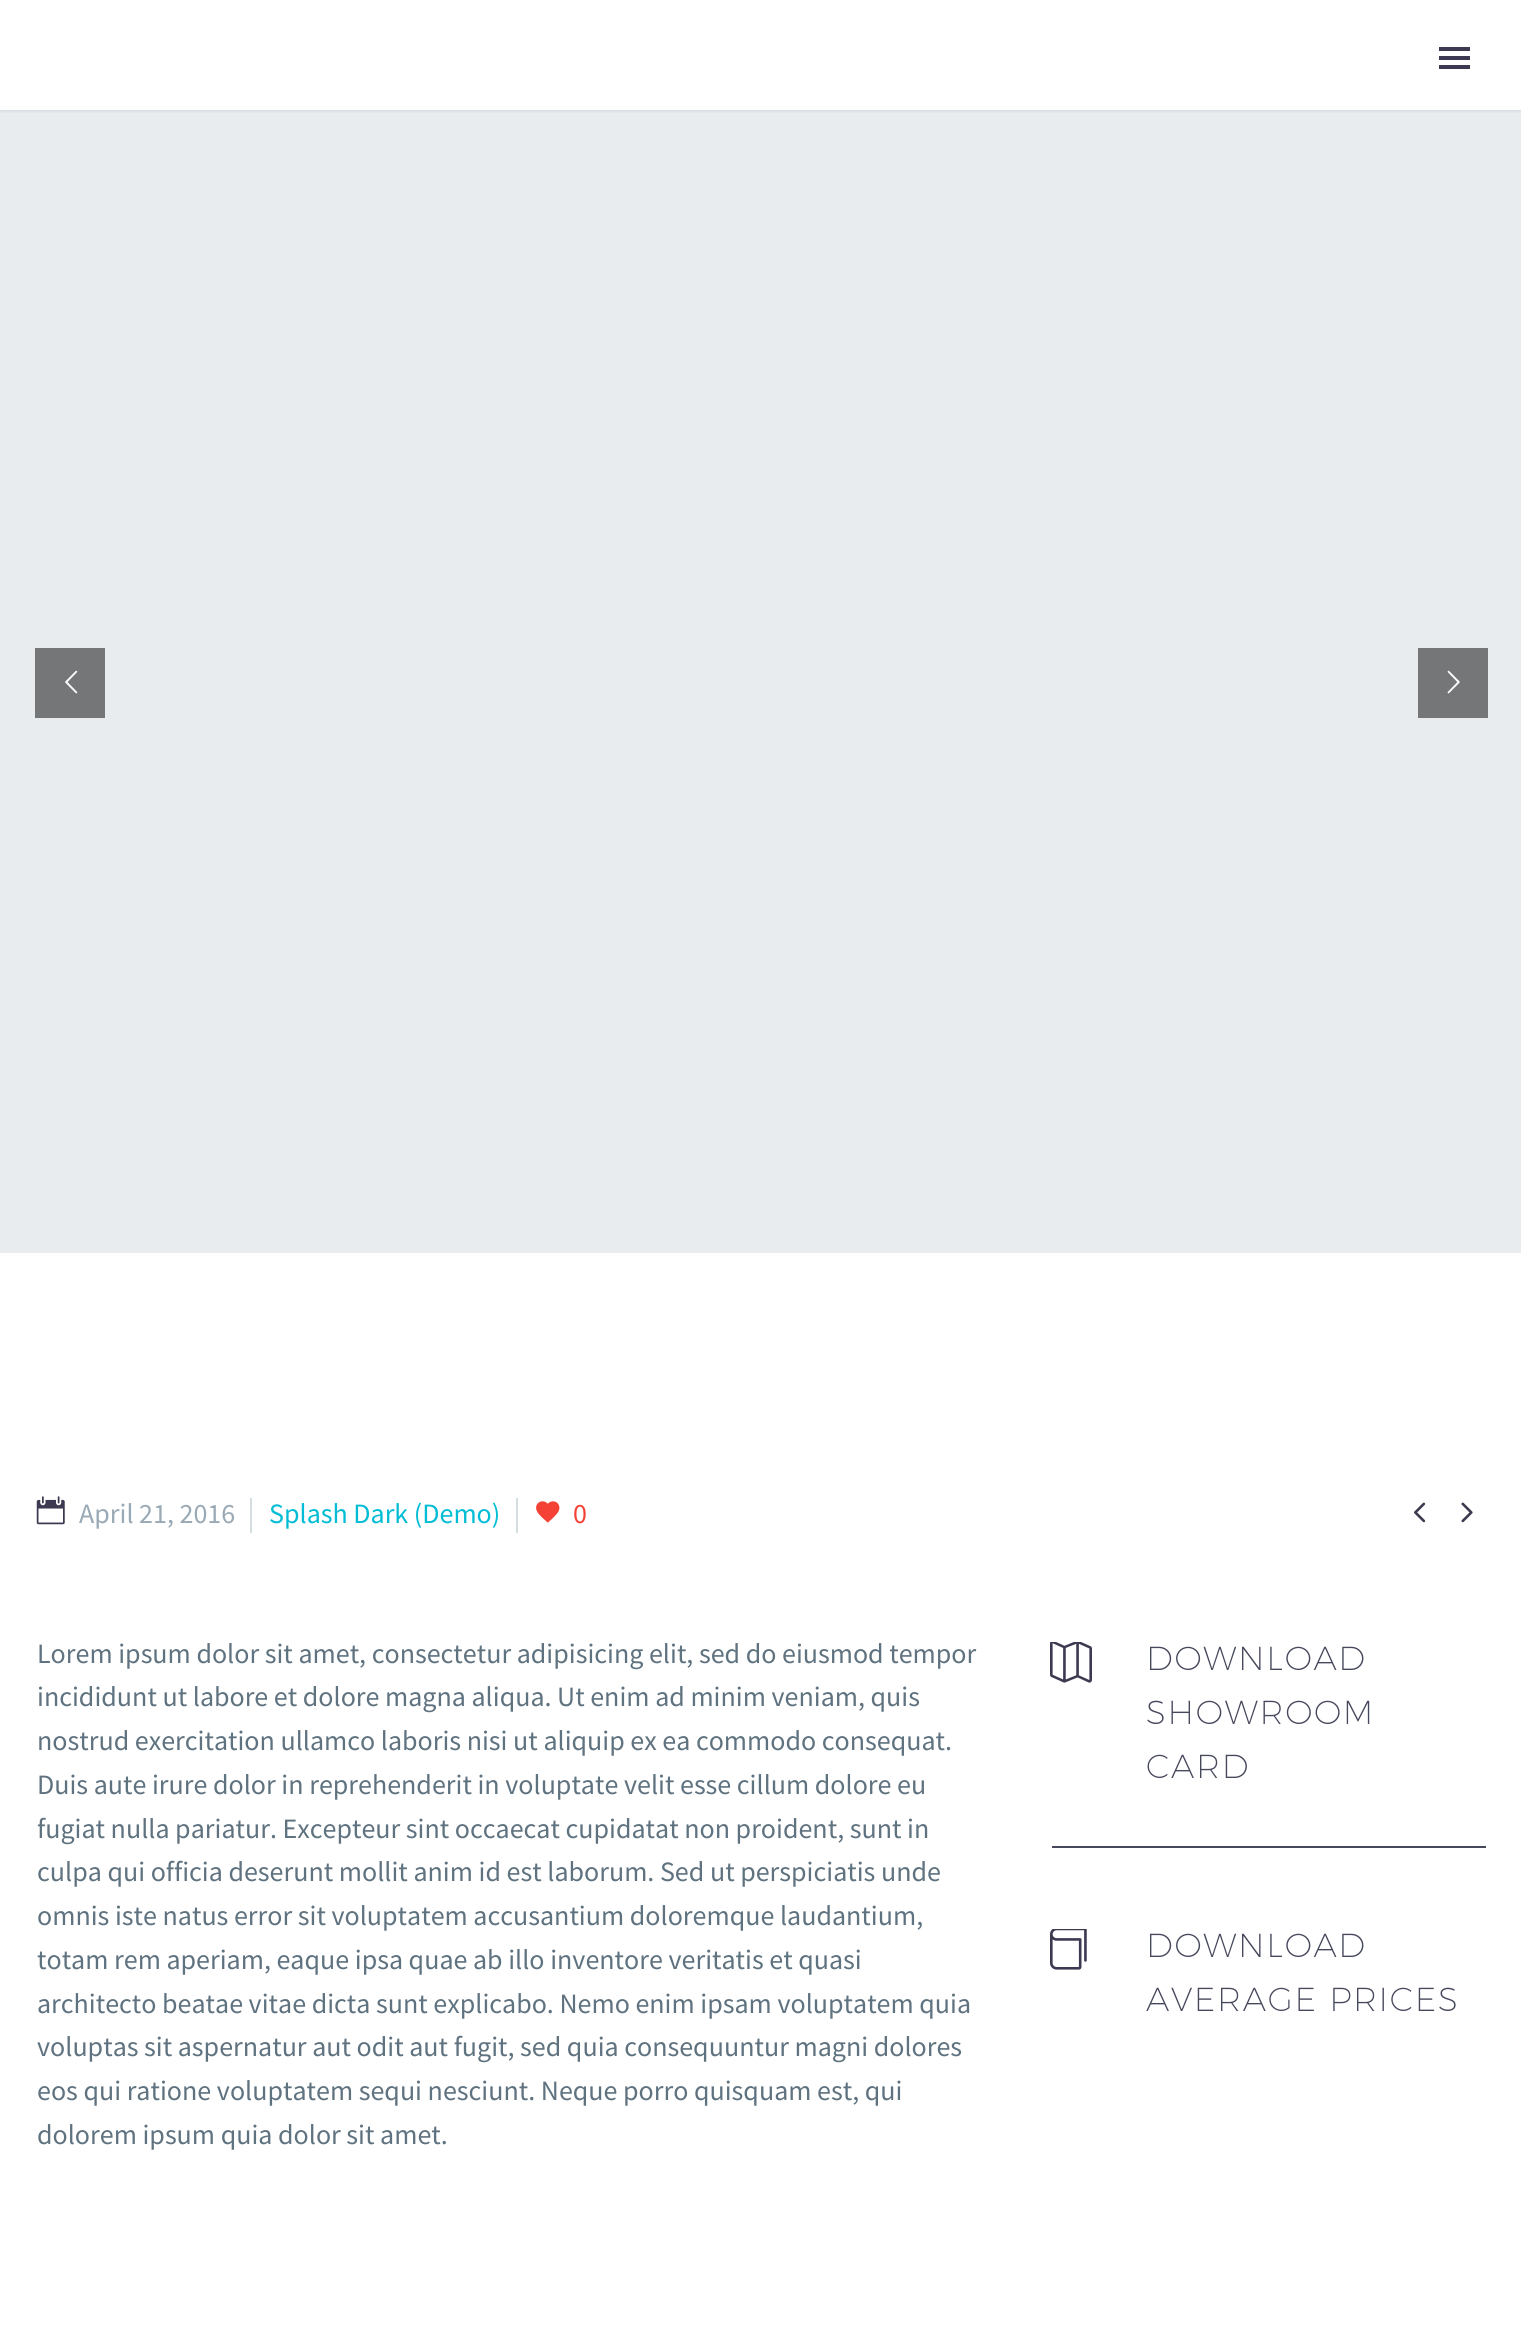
import math
import cairo


def use_color(cr, r, g, b):
  cr.set_source_rgb(r / 255, g / 255, b / 255)

def text(cr, x, y, s, family, size, color, bold=False, italic=False):
  cr.select_font_face(family, cairo.FONT_SLANT_ITALIC if italic else cairo.FONT_SLANT_NORMAL, cairo.FONT_WEIGHT_BOLD if bold else cairo.FONT_WEIGHT_NORMAL)
  cr.set_font_size(size)
  use_color(cr, *color)
  cr.move_to(x, y)
  cr.show_text(s)

def spaced_text(cr, x, y, s, letter, word):
  cr.move_to(x, y)
  for ch in s:
    cr.show_text(ch)
    cr.rel_move_to(letter + word * (ch == ' '), 0)

def box(cr, x, y, w, h, *color):
  use_color(cr, *color)
  cr.rectangle(x, y, w, h)
  cr.fill()

def round_rect(cr, x, y, w, h, r):
  cr.new_sub_path()
  for i, (u, v) in enumerate([(x + w - r, y + h - r), (x + r, y + h - r), (x + r, y + r), (x + w - r, y + r)]):
    cr.arc(u, v, r, i * math.pi / 2, (i + 1) * math.pi / 2)
  cr.close_path()

def shadow(cr, x, y, w, h, r, blur, alpha):
  cr.push_group_with_content(cairo.CONTENT_ALPHA)
  cr.set_operator(cairo.OPERATOR_SOURCE)
  for i in range(15, -16, -2):
    e = blur * i / 6
    if min(w, h) + 2 * e > 0:
      cr.set_source_rgba(0, 0, 0, alpha * math.erfc((i - 1) / 8.5) / 2)
      round_rect(cr, x - e, y - e, w + 2 * e, h + 2 * e, max(0, min(r + e + blur * .6, min(w, h) / 2 + e)))
      cr.fill()
  cr.mask(cr.pop_group())

def picture(cr, path, x, y, w, h):
  cr.save()
  cr.set_source_surface(cairo.ImageSurface.create_from_png(path), x, y)
  cr.rectangle(x, y, w, h)
  cr.fill()
  cr.restore()

def draw(cr):
  use_color(cr, 232, 236, 239)
  cr.paint()
  box(cr, 0, 0, 1521, 110, 255, 255, 255)
  cr.save()
  cr.rectangle(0, 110, 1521, 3)
  cr.clip()
  use_color(cr, 56, 69, 84)
  shadow(cr, 0, 0, 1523, 110, 0, 2, 0.2)
  cr.restore()
  box(cr, 1439, 47, 31, 4, 60, 57, 80)
  box(cr, 1439, 56, 31, 4, 60, 57, 80)
  box(cr, 1439, 65, 31, 4, 60, 57, 80)
  box(cr, 35, 648, 70, 70, 116, 118, 120)
  picture(cr, "img_01.png", 65, 670, 13, 24)
  box(cr, 1418, 648, 70, 70, 116, 118, 120)
  picture(cr, "img_02.png", 1447, 670, 13, 24)
  box(cr, 0, 1253, 1521, 1098, 255, 255, 255)
  picture(cr, "img_03.png", 36, 1496, 29, 29)
  box(cr, 250, 1498, 2, 35, 212, 222, 225)
  box(cr, 516, 1498, 2, 35, 212, 222, 225)
  picture(cr, "img_04.png", 536, 1501, 24, 22)
  picture(cr, "img_05.png", 1414, 1502, 12, 21)
  picture(cr, "img_06.png", 1461, 1502, 12, 21)
  picture(cr, "img_07.png", 1050, 1642, 21, 41)
  picture(cr, "img_08.png", 1071, 1642, 21, 41)
  box(cr, 1052, 1846, 434, 2, 70, 72, 92)
  picture(cr, "img_09.png", 1050, 1929, 21, 41)
  picture(cr, "img_10.png", 1071, 1929, 16, 41)
  text(cr, 79, 1523, "April 21, 2016", "Source Sans Pro", 28, (153, 169, 181))
  text(cr, 269, 1523, "Splash Dark (Demo)", "Source Sans Pro", 28, (0, 188, 212))
  text(cr, 573, 1523, "0", "Source Sans Pro", 28, (244, 67, 54))
  text(cr, 37, 1663, "Lorem ipsum dolor sit amet, consectetur adipisicing elit, sed do eiusmod tempor", "Source Sans Pro", 28, (95, 114, 127))
  text(cr, 37, 1706, "incididunt ut labore et dolore magna aliqua. Ut enim ad minim veniam, quis", "Source Sans Pro", 28, (95, 114, 127))
  text(cr, 37, 1750, "nostrud exercitation ullamco laboris nisi ut aliquip ex ea commodo consequat.", "Source Sans Pro", 28, (95, 114, 127))
  text(cr, 37, 1794, "Duis aute irure dolor in reprehenderit in voluptate velit esse cillum dolore eu", "Source Sans Pro", 28, (95, 114, 127))
  text(cr, 37, 1838, "fugiat nulla pariatur. Excepteur sint occaecat cupidatat non proident, sunt in", "Source Sans Pro", 28, (95, 114, 127))
  text(cr, 37, 1881, "culpa qui officia deserunt mollit anim id est laborum. Sed ut perspiciatis unde", "Source Sans Pro", 28, (95, 114, 127))
  text(cr, 37, 1925, "omnis iste natus error sit voluptatem accusantium doloremque laudantium,", "Source Sans Pro", 28, (95, 114, 127))
  text(cr, 37, 1969, "totam rem aperiam, eaque ipsa quae ab illo inventore veritatis et quasi", "Source Sans Pro", 28, (95, 114, 127))
  text(cr, 37, 2013, "architecto beatae vitae dicta sunt explicabo. Nemo enim ipsam voluptatem quia", "Source Sans Pro", 28, (95, 114, 127))
  text(cr, 37, 2056, "voluptas sit aspernatur aut odit aut fugit, sed quia consequuntur magni dolores", "Source Sans Pro", 28, (95, 114, 127))
  text(cr, 37, 2100, "eos qui ratione voluptatem sequi nesciunt. Neque porro quisquam est, qui", "Source Sans Pro", 28, (95, 114, 127))
  text(cr, 37, 2144, "dolorem ipsum quia dolor sit amet.", "Source Sans Pro", 28, (95, 114, 127))
  cr.select_font_face("Montserrat ExtraLight")
  cr.set_font_size(33.25)
  use_color(cr, 70, 72, 92)
  spaced_text(cr, 1146, 1670, "DOWNLOAD", 1.7, 0)
  spaced_text(cr, 1146, 1724, "SHOWROOM", 1.7, 0)
  spaced_text(cr, 1146, 1778, "CARD", 1.7, 0)
  spaced_text(cr, 1146, 1957, "DOWNLOAD", 1.7, 0)
  spaced_text(cr, 1146, 2011, "AVERAGE PRICES", 1.7, 0)


surface = cairo.ImageSurface(cairo.FORMAT_RGB24, 1521, 2351)
cr = cairo.Context(surface)
options = cairo.FontOptions()
options.set_hint_metrics(cairo.HINT_METRICS_OFF)
options.set_hint_style(cairo.HINT_STYLE_NONE)
cr.set_font_options(options)
cr.set_miter_limit(4)
draw(cr)
surface.write_to_png("out.png")
